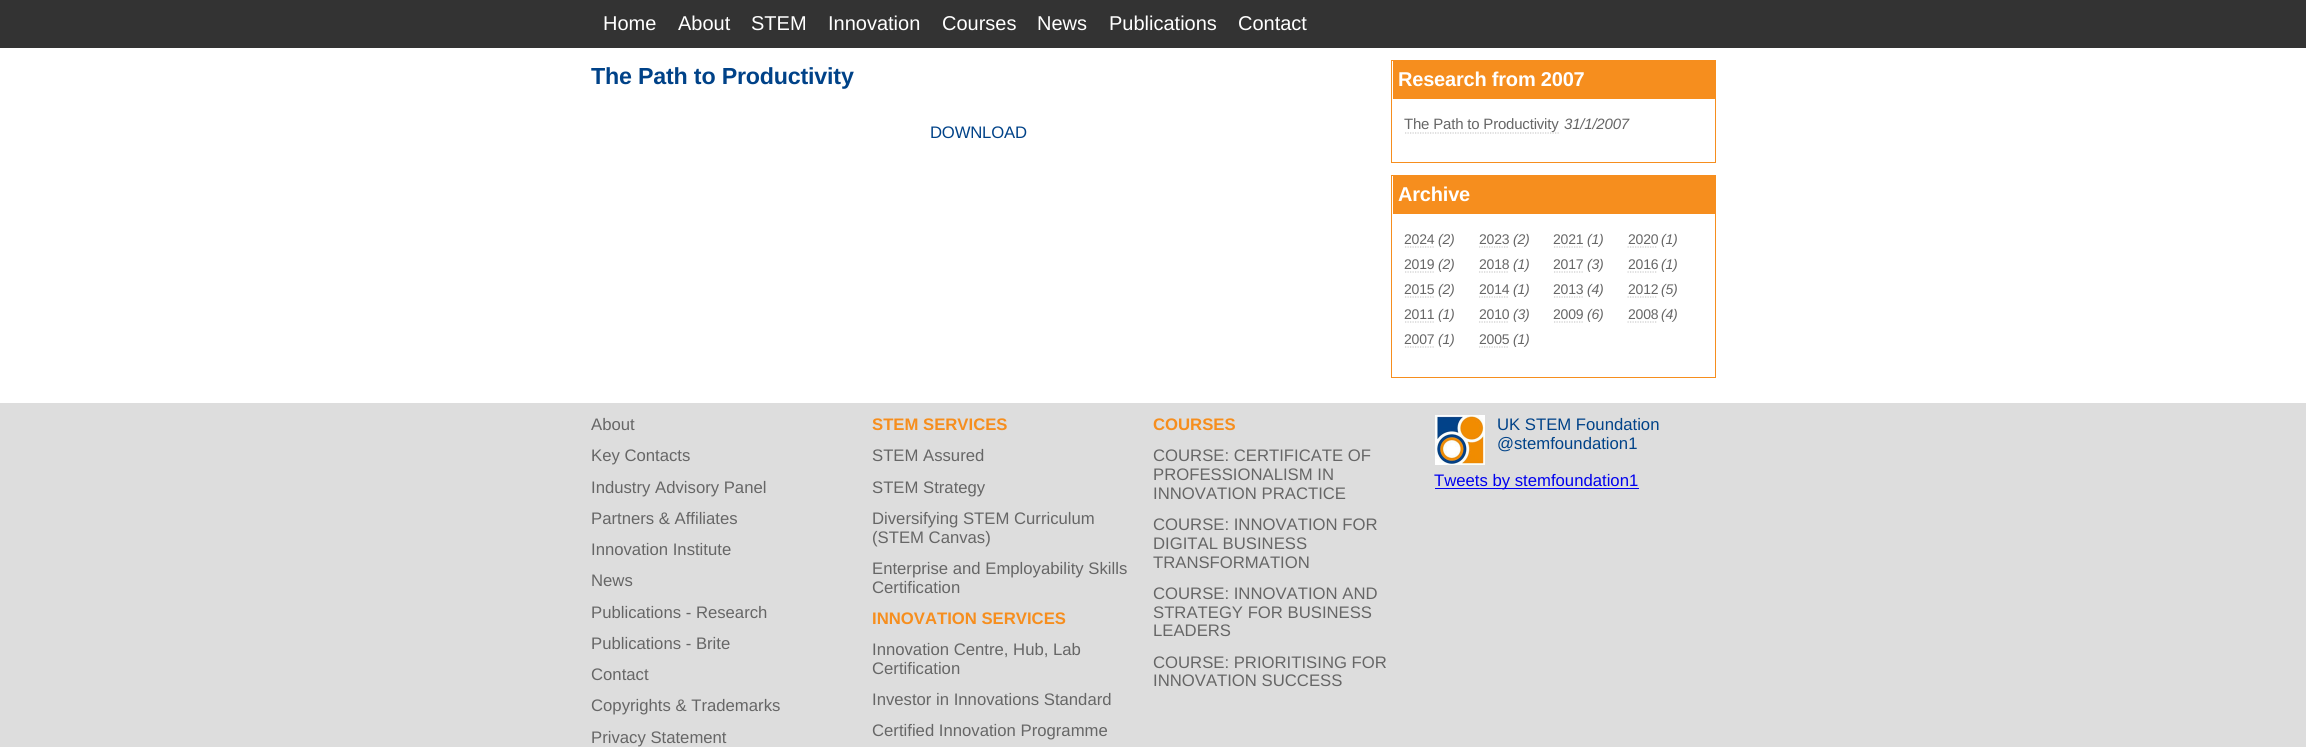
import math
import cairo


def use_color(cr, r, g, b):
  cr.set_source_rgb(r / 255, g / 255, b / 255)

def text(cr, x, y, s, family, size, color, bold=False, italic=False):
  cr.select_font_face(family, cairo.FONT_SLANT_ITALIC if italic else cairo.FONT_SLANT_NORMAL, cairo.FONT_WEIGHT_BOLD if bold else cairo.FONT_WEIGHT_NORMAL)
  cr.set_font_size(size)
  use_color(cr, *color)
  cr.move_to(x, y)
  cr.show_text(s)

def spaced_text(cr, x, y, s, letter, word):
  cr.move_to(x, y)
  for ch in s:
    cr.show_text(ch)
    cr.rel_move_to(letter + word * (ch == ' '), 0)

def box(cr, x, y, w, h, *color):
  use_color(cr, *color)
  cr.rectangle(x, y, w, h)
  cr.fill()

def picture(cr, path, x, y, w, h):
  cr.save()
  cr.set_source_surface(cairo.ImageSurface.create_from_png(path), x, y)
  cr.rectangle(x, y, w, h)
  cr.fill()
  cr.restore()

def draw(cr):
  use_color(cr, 51, 51, 51)
  cr.paint()
  box(cr, 0, 48, 2306, 355, 255, 255, 255)
  cr.rectangle(1391.5, 60.5, 324, 102)
  use_color(cr, 246, 142, 30)
  cr.set_line_width(1)
  cr.stroke()
  box(cr, 1393, 61, 322, 38, 246, 142, 30)
  cr.new_path()
  cr.move_to(1405, 133)
  cr.line_to(1560, 133)
  use_color(cr, 204, 204, 204)
  cr.set_line_width(1.2)
  cr.set_dash([1.25, 1.25])
  cr.stroke()
  cr.rectangle(1391.5, 175.5, 324, 202)
  use_color(cr, 246, 142, 30)
  cr.set_line_width(1)
  cr.set_dash([])
  cr.stroke()
  box(cr, 1393, 176, 322, 38, 246, 142, 30)
  cr.new_path()
  cr.move_to(1405, 247)
  cr.line_to(1435, 247)
  use_color(cr, 204, 204, 204)
  cr.set_line_width(1.2)
  cr.set_dash([1.25, 1.25])
  cr.stroke()
  cr.new_path()
  cr.move_to(1479, 247)
  cr.line_to(1509, 247)
  cr.stroke()
  cr.new_path()
  cr.move_to(1554, 247)
  cr.line_to(1584, 247)
  cr.stroke()
  cr.new_path()
  cr.move_to(1627.5, 247)
  cr.line_to(1657.5, 247)
  cr.stroke()
  cr.new_path()
  cr.move_to(1405, 272)
  cr.line_to(1435, 272)
  cr.stroke()
  cr.new_path()
  cr.move_to(1479, 272)
  cr.line_to(1509, 272)
  cr.stroke()
  cr.new_path()
  cr.move_to(1554, 272)
  cr.line_to(1584, 272)
  cr.stroke()
  cr.new_path()
  cr.move_to(1627.5, 272)
  cr.line_to(1657.5, 272)
  cr.stroke()
  cr.new_path()
  cr.move_to(1405, 297)
  cr.line_to(1435, 297)
  cr.stroke()
  cr.new_path()
  cr.move_to(1479, 297)
  cr.line_to(1509, 297)
  cr.stroke()
  cr.new_path()
  cr.move_to(1554, 297)
  cr.line_to(1584, 297)
  cr.stroke()
  cr.new_path()
  cr.move_to(1627.5, 297)
  cr.line_to(1657.5, 297)
  cr.stroke()
  cr.new_path()
  cr.move_to(1405, 322)
  cr.line_to(1435, 322)
  cr.stroke()
  cr.new_path()
  cr.move_to(1479, 322)
  cr.line_to(1509, 322)
  cr.stroke()
  cr.new_path()
  cr.move_to(1554, 322)
  cr.line_to(1584, 322)
  cr.stroke()
  cr.new_path()
  cr.move_to(1627.5, 322)
  cr.line_to(1657.5, 322)
  cr.stroke()
  cr.new_path()
  cr.move_to(1405, 347)
  cr.line_to(1435, 347)
  cr.stroke()
  cr.new_path()
  cr.move_to(1479, 347)
  cr.line_to(1509, 347)
  cr.stroke()
  box(cr, 0, 403, 2306, 344, 221, 221, 221)
  picture(cr, "img_01.png", 1435, 415, 50, 50)
  box(cr, 1435, 488, 204, 1, 0, 0, 238)
  text(cr, 603, 30, "Home", "Liberation Sans", 20, (255, 255, 255))
  text(cr, 678, 30, "About", "Liberation Sans", 20, (255, 255, 255))
  text(cr, 751, 30, "STEM", "Liberation Sans", 20, (255, 255, 255))
  text(cr, 828, 30, "Innovation", "Liberation Sans", 20, (255, 255, 255))
  text(cr, 942, 30, "Courses", "Liberation Sans", 20, (255, 255, 255))
  text(cr, 1037, 30, "News", "Liberation Sans", 20, (255, 255, 255))
  text(cr, 1109, 30, "Publications", "Liberation Sans", 20, (255, 255, 255))
  text(cr, 1238, 30, "Contact", "Liberation Sans", 20, (255, 255, 255))
  cr.select_font_face("Liberation Sans", cairo.FONT_SLANT_NORMAL, cairo.FONT_WEIGHT_BOLD)
  cr.set_font_size(23.25)
  use_color(cr, 0, 66, 136)
  spaced_text(cr, 591, 84, "The Path to Productivity", -0.2, 0)
  cr.select_font_face("Liberation Sans")
  cr.set_font_size(16.7)
  spaced_text(cr, 930, 138, "DOWNLOAD", -0.2, 0)
  cr.select_font_face("Liberation Sans", cairo.FONT_SLANT_NORMAL, cairo.FONT_WEIGHT_BOLD)
  cr.set_font_size(20)
  use_color(cr, 255, 255, 255)
  spaced_text(cr, 1398, 86, "Research from 2007", -0.2, 0)
  cr.select_font_face("Liberation Sans")
  cr.set_font_size(15)
  use_color(cr, 102, 102, 102)
  spaced_text(cr, 1404, 129, "The Path to Productivity", -0.2, 0)
  cr.select_font_face("Liberation Sans", cairo.FONT_SLANT_ITALIC)
  spaced_text(cr, 1564, 129, "31/1/2007", -0.2, 0)
  cr.select_font_face("Liberation Sans", cairo.FONT_SLANT_NORMAL, cairo.FONT_WEIGHT_BOLD)
  cr.set_font_size(20)
  use_color(cr, 255, 255, 255)
  spaced_text(cr, 1398, 201, "Archive", -0.2, 0)
  cr.select_font_face("Liberation Sans")
  cr.set_font_size(14)
  use_color(cr, 102, 102, 102)
  spaced_text(cr, 1404, 244, "2024", -0.2, 0)
  cr.select_font_face("Liberation Sans", cairo.FONT_SLANT_ITALIC)
  spaced_text(cr, 1438, 244, "(2)", -0.2, 0)
  cr.select_font_face("Liberation Sans")
  spaced_text(cr, 1479, 244, "2023", -0.2, 0)
  cr.select_font_face("Liberation Sans", cairo.FONT_SLANT_ITALIC)
  spaced_text(cr, 1513, 244, "(2)", -0.2, 0)
  cr.select_font_face("Liberation Sans")
  spaced_text(cr, 1553, 244, "2021", -0.2, 0)
  cr.select_font_face("Liberation Sans", cairo.FONT_SLANT_ITALIC)
  spaced_text(cr, 1587, 244, "(1)", -0.2, 0)
  cr.select_font_face("Liberation Sans")
  spaced_text(cr, 1628, 244, "2020", -0.2, 0)
  cr.select_font_face("Liberation Sans", cairo.FONT_SLANT_ITALIC)
  spaced_text(cr, 1661, 244, "(1)", -0.2, 0)
  cr.select_font_face("Liberation Sans")
  spaced_text(cr, 1404, 269, "2019", -0.2, 0)
  cr.select_font_face("Liberation Sans", cairo.FONT_SLANT_ITALIC)
  spaced_text(cr, 1438, 269, "(2)", -0.2, 0)
  cr.select_font_face("Liberation Sans")
  spaced_text(cr, 1479, 269, "2018", -0.2, 0)
  cr.select_font_face("Liberation Sans", cairo.FONT_SLANT_ITALIC)
  spaced_text(cr, 1513, 269, "(1)", -0.2, 0)
  cr.select_font_face("Liberation Sans")
  spaced_text(cr, 1553, 269, "2017", -0.2, 0)
  cr.select_font_face("Liberation Sans", cairo.FONT_SLANT_ITALIC)
  spaced_text(cr, 1587, 269, "(3)", -0.2, 0)
  cr.select_font_face("Liberation Sans")
  spaced_text(cr, 1628, 269, "2016", -0.2, 0)
  cr.select_font_face("Liberation Sans", cairo.FONT_SLANT_ITALIC)
  spaced_text(cr, 1661, 269, "(1)", -0.2, 0)
  cr.select_font_face("Liberation Sans")
  spaced_text(cr, 1404, 294, "2015", -0.2, 0)
  cr.select_font_face("Liberation Sans", cairo.FONT_SLANT_ITALIC)
  spaced_text(cr, 1438, 294, "(2)", -0.2, 0)
  cr.select_font_face("Liberation Sans")
  spaced_text(cr, 1479, 294, "2014", -0.2, 0)
  cr.select_font_face("Liberation Sans", cairo.FONT_SLANT_ITALIC)
  spaced_text(cr, 1513, 294, "(1)", -0.2, 0)
  cr.select_font_face("Liberation Sans")
  spaced_text(cr, 1553, 294, "2013", -0.2, 0)
  cr.select_font_face("Liberation Sans", cairo.FONT_SLANT_ITALIC)
  spaced_text(cr, 1587, 294, "(4)", -0.2, 0)
  cr.select_font_face("Liberation Sans")
  spaced_text(cr, 1628, 294, "2012", -0.2, 0)
  cr.select_font_face("Liberation Sans", cairo.FONT_SLANT_ITALIC)
  spaced_text(cr, 1661, 294, "(5)", -0.2, 0)
  cr.select_font_face("Liberation Sans")
  spaced_text(cr, 1404, 319, "2011", -0.2, 0)
  cr.select_font_face("Liberation Sans", cairo.FONT_SLANT_ITALIC)
  spaced_text(cr, 1438, 319, "(1)", -0.2, 0)
  cr.select_font_face("Liberation Sans")
  spaced_text(cr, 1479, 319, "2010", -0.2, 0)
  cr.select_font_face("Liberation Sans", cairo.FONT_SLANT_ITALIC)
  spaced_text(cr, 1513, 319, "(3)", -0.2, 0)
  cr.select_font_face("Liberation Sans")
  spaced_text(cr, 1553, 319, "2009", -0.2, 0)
  cr.select_font_face("Liberation Sans", cairo.FONT_SLANT_ITALIC)
  spaced_text(cr, 1587, 319, "(6)", -0.2, 0)
  cr.select_font_face("Liberation Sans")
  spaced_text(cr, 1628, 319, "2008", -0.2, 0)
  cr.select_font_face("Liberation Sans", cairo.FONT_SLANT_ITALIC)
  spaced_text(cr, 1661, 319, "(4)", -0.2, 0)
  cr.select_font_face("Liberation Sans")
  spaced_text(cr, 1404, 344, "2007", -0.2, 0)
  cr.select_font_face("Liberation Sans", cairo.FONT_SLANT_ITALIC)
  spaced_text(cr, 1438, 344, "(1)", -0.2, 0)
  cr.select_font_face("Liberation Sans")
  spaced_text(cr, 1479, 344, "2005", -0.2, 0)
  cr.select_font_face("Liberation Sans", cairo.FONT_SLANT_ITALIC)
  spaced_text(cr, 1513, 344, "(1)", -0.2, 0)
  text(cr, 591, 430, "About", "Liberation Sans", 16.7, (102, 102, 102))
  text(cr, 591, 461, "Key Contacts", "Liberation Sans", 16.7, (102, 102, 102))
  text(cr, 591, 493, "Industry Advisory Panel", "Liberation Sans", 16.7, (102, 102, 102))
  text(cr, 591, 524, "Partners & Affiliates", "Liberation Sans", 16.7, (102, 102, 102))
  text(cr, 591, 555, "Innovation Institute", "Liberation Sans", 16.7, (102, 102, 102))
  text(cr, 591, 586, "News", "Liberation Sans", 16.7, (102, 102, 102))
  text(cr, 591, 618, "Publications - Research", "Liberation Sans", 16.7, (102, 102, 102))
  text(cr, 591, 649, "Publications - Brite", "Liberation Sans", 16.7, (102, 102, 102))
  text(cr, 591, 680, "Contact", "Liberation Sans", 16.7, (102, 102, 102))
  text(cr, 591, 711, "Copyrights & Trademarks", "Liberation Sans", 16.7, (102, 102, 102))
  text(cr, 591, 743, "Privacy Statement", "Liberation Sans", 16.7, (102, 102, 102))
  text(cr, 872, 430, "STEM SERVICES", "Liberation Sans", 16.7, (246, 142, 30), bold=True)
  text(cr, 872, 461, "STEM Assured", "Liberation Sans", 16.7, (102, 102, 102))
  text(cr, 872, 493, "STEM Strategy", "Liberation Sans", 16.7, (102, 102, 102))
  text(cr, 872, 524, "Diversifying STEM Curriculum", "Liberation Sans", 16.7, (102, 102, 102))
  text(cr, 872, 543, "(STEM Canvas)", "Liberation Sans", 16.7, (102, 102, 102))
  text(cr, 872, 574, "Enterprise and Employability Skills", "Liberation Sans", 16.7, (102, 102, 102))
  text(cr, 872, 593, "Certification", "Liberation Sans", 16.7, (102, 102, 102))
  text(cr, 872, 624, "INNOVATION SERVICES", "Liberation Sans", 16.7, (246, 142, 30), bold=True)
  text(cr, 872, 655, "Innovation Centre, Hub, Lab", "Liberation Sans", 16.7, (102, 102, 102))
  text(cr, 872, 674, "Certification", "Liberation Sans", 16.7, (102, 102, 102))
  text(cr, 872, 705, "Investor in Innovations Standard", "Liberation Sans", 16.7, (102, 102, 102))
  text(cr, 872, 736, "Certified Innovation Programme", "Liberation Sans", 16.7, (102, 102, 102))
  text(cr, 1153, 430, "COURSES", "Liberation Sans", 16.7, (246, 142, 30), bold=True)
  text(cr, 1153, 461, "COURSE: CERTIFICATE OF", "Liberation Sans", 16.7, (102, 102, 102))
  text(cr, 1153, 480, "PROFESSIONALISM IN", "Liberation Sans", 16.7, (102, 102, 102))
  text(cr, 1153, 499, "INNOVATION PRACTICE", "Liberation Sans", 16.7, (102, 102, 102))
  text(cr, 1153, 530, "COURSE: INNOVATION FOR", "Liberation Sans", 16.7, (102, 102, 102))
  text(cr, 1153, 549, "DIGITAL BUSINESS", "Liberation Sans", 16.7, (102, 102, 102))
  text(cr, 1153, 568, "TRANSFORMATION", "Liberation Sans", 16.7, (102, 102, 102))
  text(cr, 1153, 599, "COURSE: INNOVATION AND", "Liberation Sans", 16.7, (102, 102, 102))
  text(cr, 1153, 618, "STRATEGY FOR BUSINESS", "Liberation Sans", 16.7, (102, 102, 102))
  text(cr, 1153, 636, "LEADERS", "Liberation Sans", 16.7, (102, 102, 102))
  text(cr, 1153, 668, "COURSE: PRIORITISING FOR", "Liberation Sans", 16.7, (102, 102, 102))
  text(cr, 1153, 686, "INNOVATION SUCCESS", "Liberation Sans", 16.7, (102, 102, 102))
  text(cr, 1497, 430, "UK STEM Foundation", "Liberation Sans", 16.7, (0, 66, 136))
  text(cr, 1497, 449, "@stemfoundation1", "Liberation Sans", 16.7, (0, 66, 136))
  text(cr, 1434, 486, "Tweets by stemfoundation1", "Liberation Sans", 16.7, (0, 0, 238))


surface = cairo.ImageSurface(cairo.FORMAT_RGB24, 2306, 747)
cr = cairo.Context(surface)
options = cairo.FontOptions()
options.set_hint_metrics(cairo.HINT_METRICS_OFF)
options.set_hint_style(cairo.HINT_STYLE_NONE)
cr.set_font_options(options)
cr.set_miter_limit(4)
draw(cr)
surface.write_to_png("out.png")
